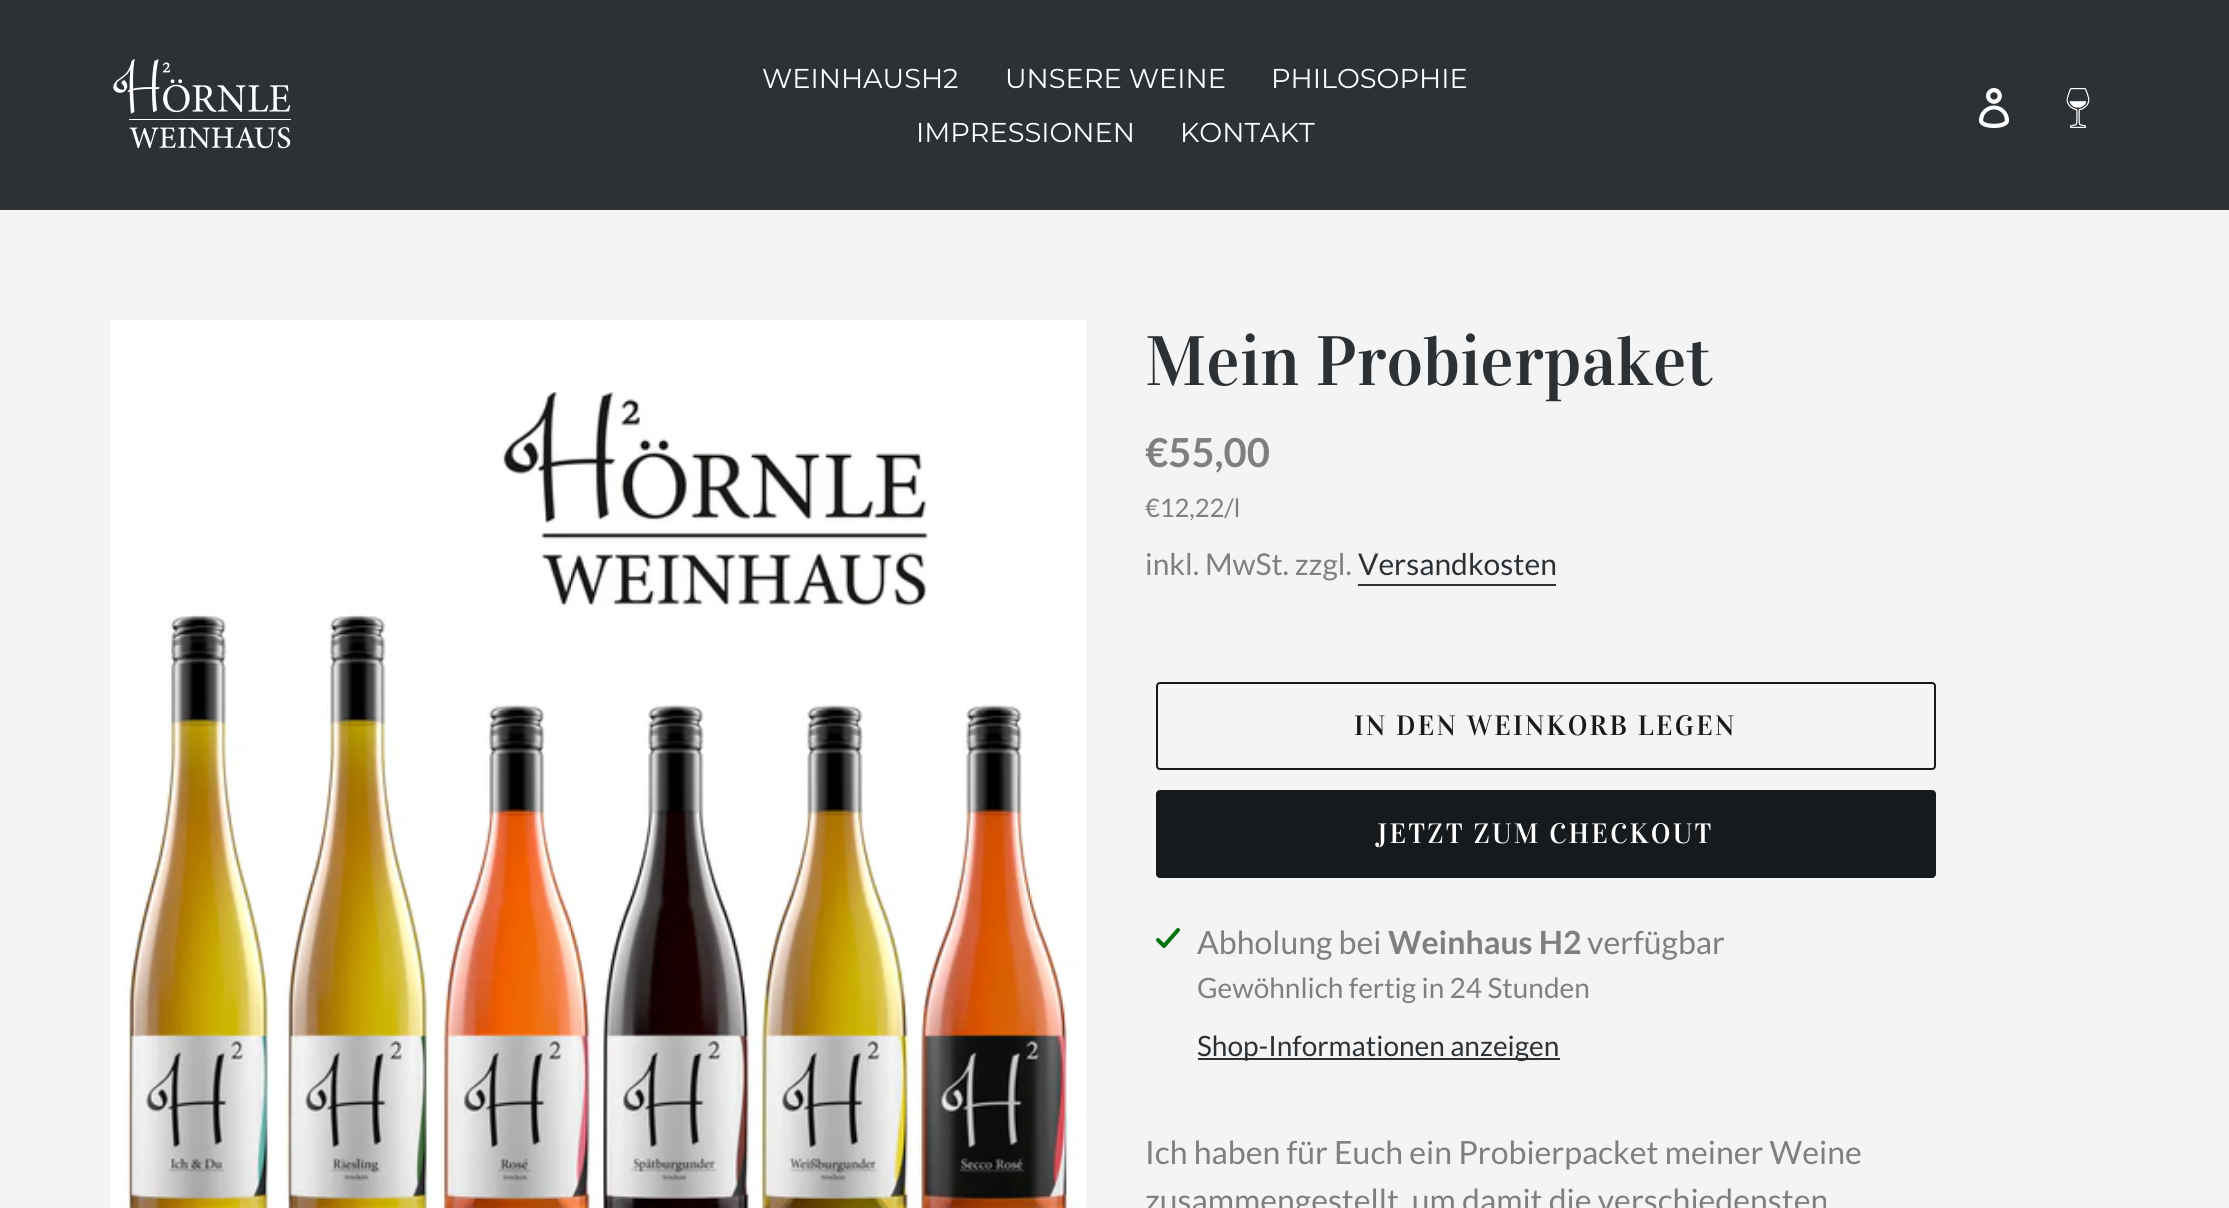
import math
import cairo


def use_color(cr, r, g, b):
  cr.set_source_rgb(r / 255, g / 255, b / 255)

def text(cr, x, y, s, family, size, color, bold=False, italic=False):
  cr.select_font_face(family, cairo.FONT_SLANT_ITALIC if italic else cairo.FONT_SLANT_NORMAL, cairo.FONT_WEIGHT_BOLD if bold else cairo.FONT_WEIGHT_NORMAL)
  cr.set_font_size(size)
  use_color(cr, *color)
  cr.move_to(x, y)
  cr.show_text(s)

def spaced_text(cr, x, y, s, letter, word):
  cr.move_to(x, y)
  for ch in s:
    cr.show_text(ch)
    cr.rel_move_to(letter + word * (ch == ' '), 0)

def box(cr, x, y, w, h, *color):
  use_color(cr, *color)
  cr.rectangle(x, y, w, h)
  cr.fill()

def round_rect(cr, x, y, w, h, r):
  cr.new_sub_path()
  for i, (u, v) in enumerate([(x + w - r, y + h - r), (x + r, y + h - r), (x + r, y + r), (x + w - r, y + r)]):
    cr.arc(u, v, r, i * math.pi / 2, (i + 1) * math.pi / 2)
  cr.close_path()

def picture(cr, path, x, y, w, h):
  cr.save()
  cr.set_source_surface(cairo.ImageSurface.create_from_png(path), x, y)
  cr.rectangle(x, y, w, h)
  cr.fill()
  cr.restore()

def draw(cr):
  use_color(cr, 244, 244, 244)
  cr.paint()
  box(cr, 0, 0, 2229, 210, 44, 49, 54)
  picture(cr, "img_01.png", 113, 59, 178, 90)
  picture(cr, "img_02.png", 1979, 88, 31, 40)
  picture(cr, "img_03.png", 2066, 88, 24, 40)
  picture(cr, "img_04.png", 110, 320, 976, 888)
  box(cr, 1358, 584, 198, 2, 44, 49, 54)
  round_rect(cr, 1157, 683, 778, 86, 3)
  use_color(cr, 23, 26, 28)
  cr.stroke()
  round_rect(cr, 1156, 790, 780, 88, 4)
  cr.fill()
  picture(cr, "img_05.png", 1156, 928, 24, 20)
  box(cr, 1198, 1058, 362, 2, 44, 49, 54)
  text(cr, 762, 88, "WEINHAUSH2", "Montserrat", 27.25, (255, 255, 255))
  text(cr, 1005, 88, "UNSERE WEINE", "Montserrat", 27.25, (255, 255, 255))
  text(cr, 1271, 88, "PHILOSOPHIE", "Montserrat", 27.25, (255, 255, 255))
  text(cr, 916, 142, "IMPRESSIONEN", "Montserrat", 27.25, (255, 255, 255))
  text(cr, 1180, 142, "KONTAKT", "Montserrat", 27.25, (255, 255, 255))
  text(cr, 1145, 385, "Mein Probierpaket", "Vidaloka", 70, (44, 49, 54))
  text(cr, 1145, 467, "€55,00", "Lato", 40, (125, 127, 129), bold=True)
  text(cr, 1145, 517, "€12,22/l", "Lato", 25.5, (125, 127, 129))
  text(cr, 1145, 575, "inkl. MwSt. zzgl.", "Lato", 30, (125, 127, 129))
  text(cr, 1358, 575, "Versandkosten", "Lato", 30, (44, 49, 54))
  cr.select_font_face("Vidaloka")
  cr.set_font_size(28)
  use_color(cr, 23, 26, 28)
  spaced_text(cr, 1354, 735, "IN DEN WEINKORB LEGEN", 2.25, 0)
  use_color(cr, 255, 255, 255)
  spaced_text(cr, 1376, 843, "JETZT ZUM CHECKOUT", 2.25, 0)
  text(cr, 1197, 954, "Abholung bei", "Lato", 32, (125, 127, 129))
  text(cr, 1388, 954, "Weinhaus H2", "Lato", 32, (125, 127, 129), bold=True)
  text(cr, 1587, 954, "verfügbar", "Lato", 32, (125, 127, 129))
  text(cr, 1197, 998, "Gewöhnlich fertig in 24 Stunden", "Lato", 28, (125, 127, 129))
  text(cr, 1197, 1056, "Shop-Informationen anzeigen", "Lato", 28, (44, 49, 54))
  text(cr, 1145, 1164, "Ich haben für Euch ein Probierpacket meiner Weine", "Lato", 32, (125, 127, 129))
  text(cr, 1145, 1212, "zusammengestellt, um damit die verschiedensten", "Lato", 32, (125, 127, 129))


surface = cairo.ImageSurface(cairo.FORMAT_RGB24, 2229, 1208)
cr = cairo.Context(surface)
options = cairo.FontOptions()
options.set_hint_metrics(cairo.HINT_METRICS_OFF)
options.set_hint_style(cairo.HINT_STYLE_NONE)
cr.set_font_options(options)
cr.set_miter_limit(4)
draw(cr)
surface.write_to_png("out.png")
